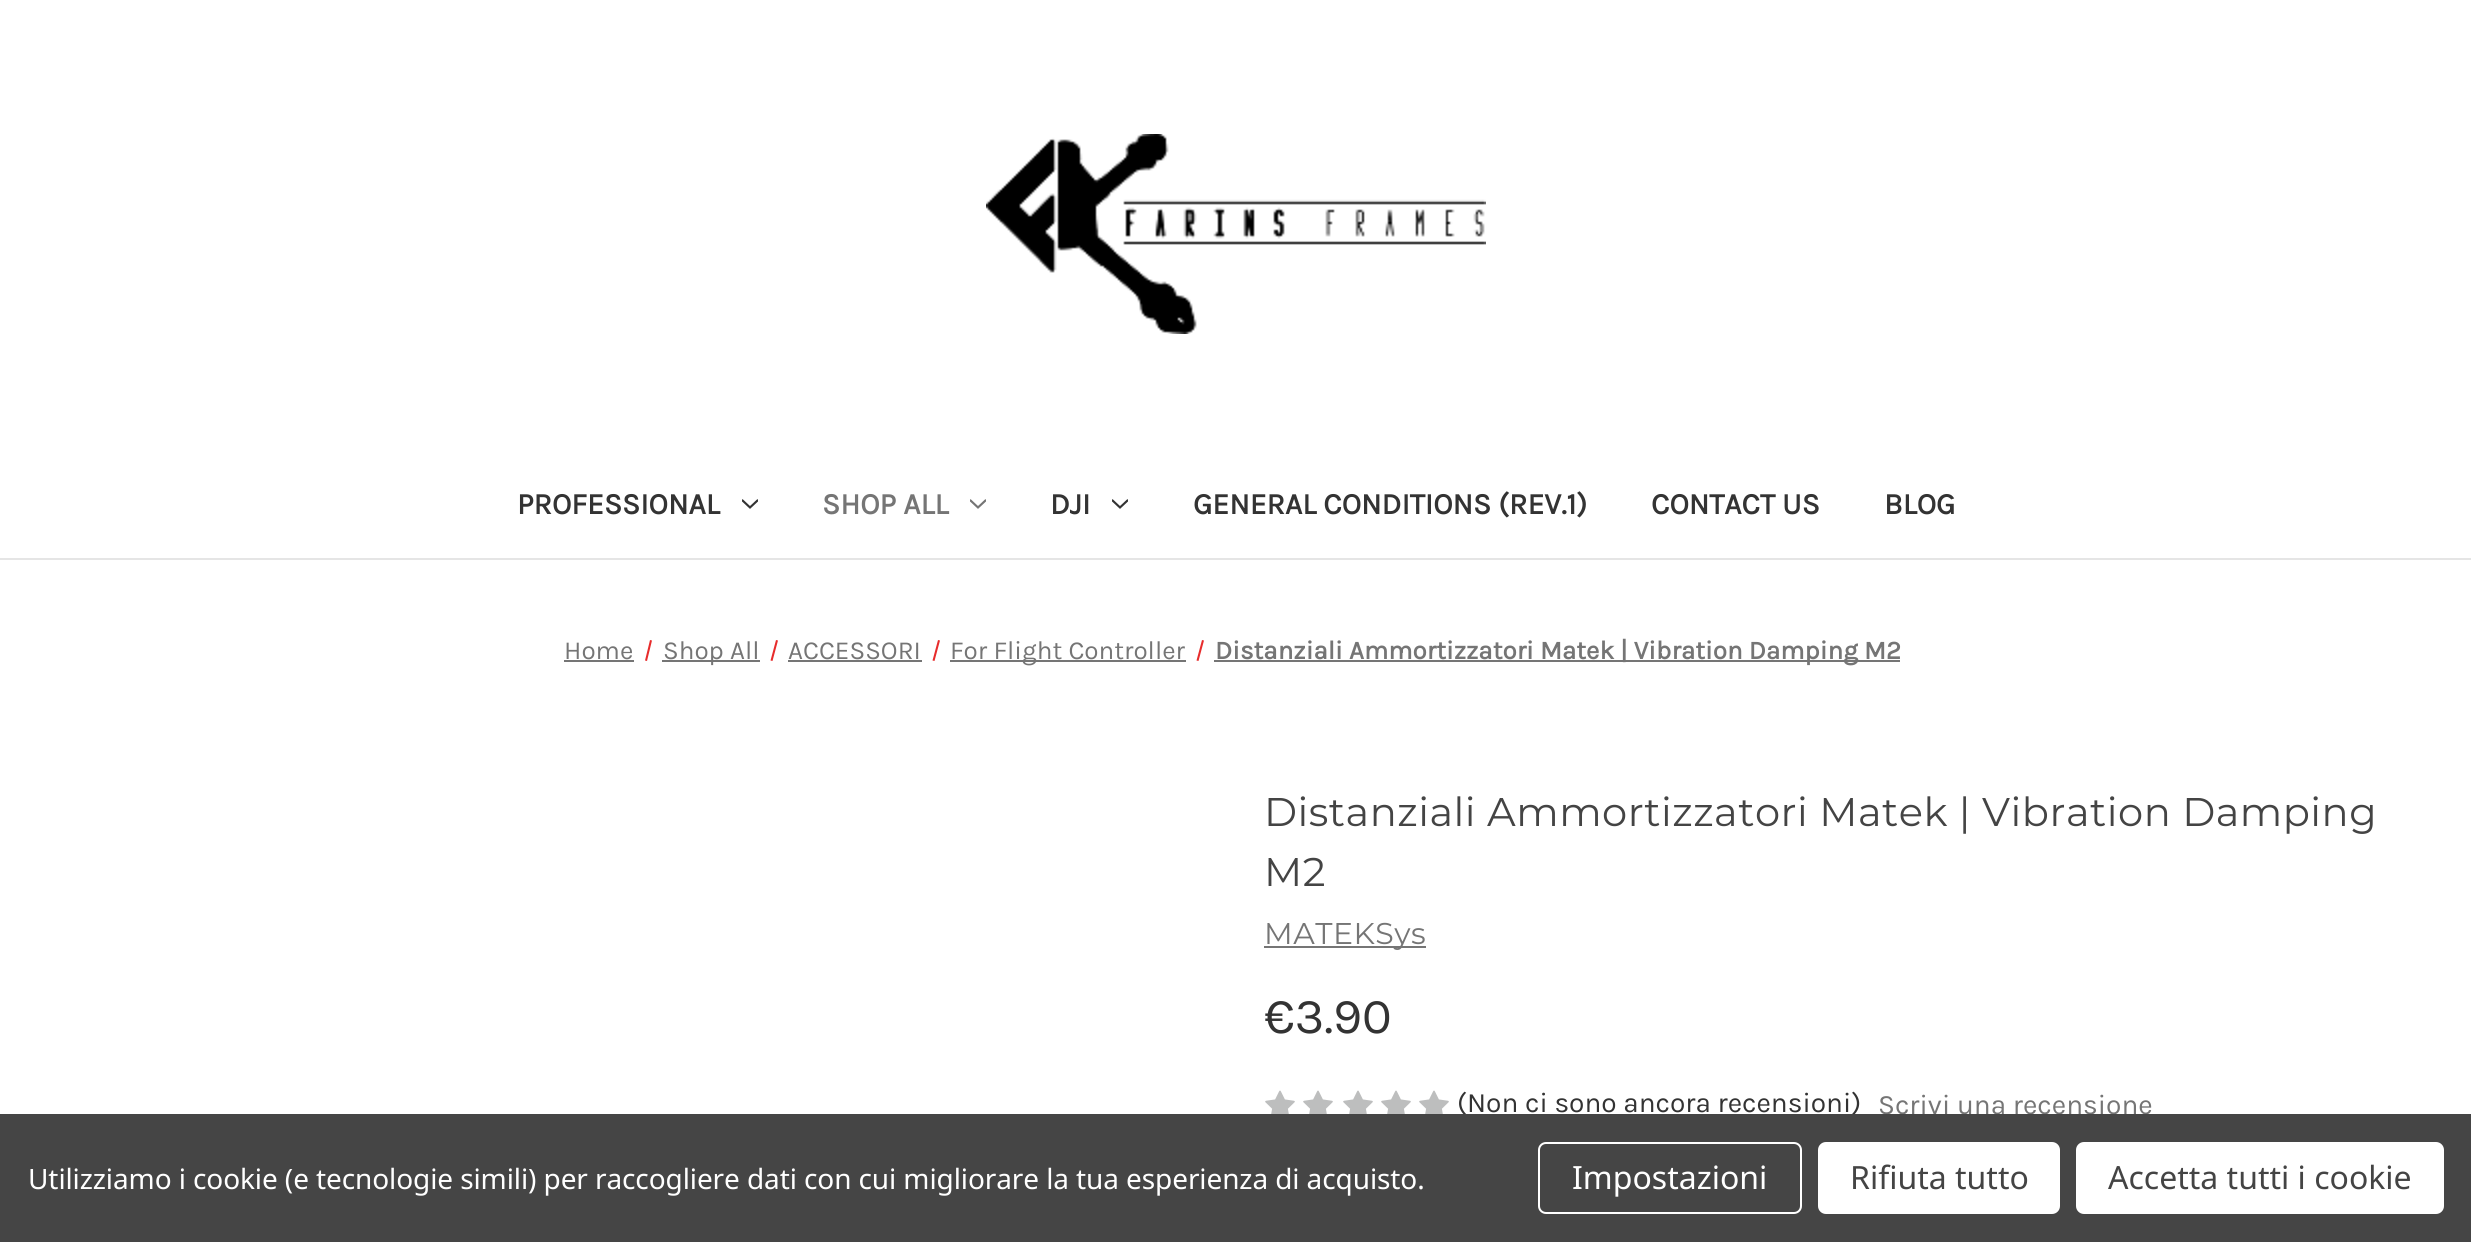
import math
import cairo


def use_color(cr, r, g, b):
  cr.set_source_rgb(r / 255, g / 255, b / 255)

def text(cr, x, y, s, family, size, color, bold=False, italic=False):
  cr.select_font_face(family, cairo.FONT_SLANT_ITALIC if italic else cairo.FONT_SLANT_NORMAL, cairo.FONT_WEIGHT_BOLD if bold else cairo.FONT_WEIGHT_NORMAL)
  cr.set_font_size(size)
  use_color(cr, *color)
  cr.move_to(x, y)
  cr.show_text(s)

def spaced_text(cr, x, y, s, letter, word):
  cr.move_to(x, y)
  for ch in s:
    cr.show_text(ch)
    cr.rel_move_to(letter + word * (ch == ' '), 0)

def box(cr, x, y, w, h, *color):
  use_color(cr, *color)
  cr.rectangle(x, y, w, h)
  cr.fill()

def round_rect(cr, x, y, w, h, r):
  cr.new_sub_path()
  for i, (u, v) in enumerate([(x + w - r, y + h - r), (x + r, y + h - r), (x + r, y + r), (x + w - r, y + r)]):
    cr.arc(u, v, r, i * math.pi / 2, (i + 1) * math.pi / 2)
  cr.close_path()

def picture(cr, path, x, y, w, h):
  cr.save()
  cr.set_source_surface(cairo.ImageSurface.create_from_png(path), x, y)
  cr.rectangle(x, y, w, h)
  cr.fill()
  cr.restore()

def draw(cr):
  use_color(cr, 255, 255, 255)
  cr.paint()
  box(cr, 0, 558, 2471, 2, 229, 229, 229)
  picture(cr, "img_01.png", 986, 134, 500, 200)
  picture(cr, "img_02.png", 742, 499, 16, 10)
  picture(cr, "img_03.png", 970, 499, 16, 10)
  picture(cr, "img_02.png", 1112, 499, 16, 10)
  box(cr, 564, 660, 70, 2, 117, 117, 117)
  use_color(cr, 231, 44, 44)
  cr.new_path()
  cr.move_to(650, 640)
  cr.line_to(652, 640.5)
  cr.line_to(647, 661)
  cr.line_to(645, 660.5)
  cr.close_path()
  cr.fill()
  box(cr, 662, 660, 98, 2, 117, 117, 117)
  use_color(cr, 231, 44, 44)
  cr.new_path()
  cr.move_to(776, 640)
  cr.line_to(778, 640.5)
  cr.line_to(772.5, 661)
  cr.line_to(770.5, 660.5)
  cr.close_path()
  cr.fill()
  box(cr, 788, 660, 134, 2, 117, 117, 117)
  use_color(cr, 231, 44, 44)
  cr.new_path()
  cr.move_to(938, 640)
  cr.line_to(940, 640.5)
  cr.line_to(934.5, 661)
  cr.line_to(932.5, 660.5)
  cr.close_path()
  cr.fill()
  box(cr, 950, 660, 236, 2, 117, 117, 117)
  use_color(cr, 231, 44, 44)
  cr.new_path()
  cr.move_to(1202, 640)
  cr.line_to(1204, 640.5)
  cr.line_to(1198.5, 661)
  cr.line_to(1196.5, 660.5)
  cr.close_path()
  cr.fill()
  box(cr, 1214, 660, 686, 2, 117, 117, 117)
  box(cr, 1264, 946, 162, 2, 117, 117, 117)
  picture(cr, "img_04.png", 1265, 1090, 30, 24)
  picture(cr, "img_04.png", 1303, 1090, 30, 24)
  picture(cr, "img_04.png", 1343, 1090, 30, 24)
  picture(cr, "img_04.png", 1381, 1090, 30, 24)
  picture(cr, "img_04.png", 1419, 1090, 30, 24)
  text(cr, 517, 514, "PROFESSIONAL", "Karla", 30, (51, 51, 51), bold=True)
  text(cr, 822, 514, "SHOP ALL", "Karla", 30, (117, 117, 117), bold=True)
  text(cr, 1050, 514, "DJI", "Karla", 30, (51, 51, 51), bold=True)
  text(cr, 1193, 514, "GENERAL CONDITIONS (REV.1)", "Karla", 30, (51, 51, 51), bold=True)
  text(cr, 1651, 514, "CONTACT US", "Karla", 30, (51, 51, 51), bold=True)
  text(cr, 1884, 514, "BLOG", "Karla", 30, (51, 51, 51), bold=True)
  text(cr, 564, 659, "Home", "Karla", 26, (117, 117, 117))
  text(cr, 663, 659, "Shop All", "Karla", 26, (117, 117, 117))
  text(cr, 788, 659, "ACCESSORI", "Karla", 26, (117, 117, 117))
  text(cr, 950, 659, "For Flight Controller", "Karla", 26, (117, 117, 117))
  text(cr, 1215, 659, "Distanziali Ammortizzatori Matek | Vibration Damping M2", "Karla", 26, (117, 117, 117), bold=True)
  cr.select_font_face("Montserrat Thin")
  cr.set_font_size(40)
  use_color(cr, 68, 68, 68)
  spaced_text(cr, 1264, 826, "Distanziali Ammortizzatori Matek | Vibration Damping", 0.5, 0)
  spaced_text(cr, 1264, 886, "M2", 0.5, 0)
  cr.set_font_size(30)
  use_color(cr, 117, 117, 117)
  spaced_text(cr, 1264, 944, "MATEKSys", 0.5, 0)
  text(cr, 1264, 1033, "€3.90", "Karla", 50, (51, 51, 51))
  text(cr, 1457, 1112, "(Non ci sono ancora recensioni)", "Karla", 28, (51, 51, 51))
  text(cr, 1878, 1114, "Scrivi una recensione", "Karla", 28, (117, 117, 117))
  box(cr, 0, 1114, 2471, 128, 69, 69, 69)
  cr.select_font_face("Noto Sans")
  use_color(cr, 255, 255, 255)
  spaced_text(cr, 28, 1189, "Utilizziamo i cookie (e tecnologie simili) per raccogliere dati con cui migliorare la tua esperienza di acquisto.", -0.1, 0)
  round_rect(cr, 1539, 1143, 262, 70, 7)
  cr.stroke()
  text(cr, 1572, 1189, "Impostazioni", "Noto Sans", 32, (255, 255, 255))
  round_rect(cr, 1818, 1142, 242, 72, 8)
  cr.fill()
  text(cr, 1850, 1189, "Rifiuta tutto", "Noto Sans", 32, (68, 68, 68))
  use_color(cr, 255, 255, 255)
  round_rect(cr, 2076, 1142, 368, 72, 8)
  cr.fill()
  text(cr, 2108, 1189, "Accetta tutti i cookie", "Noto Sans", 32, (68, 68, 68))


surface = cairo.ImageSurface(cairo.FORMAT_RGB24, 2471, 1242)
cr = cairo.Context(surface)
options = cairo.FontOptions()
options.set_hint_metrics(cairo.HINT_METRICS_OFF)
options.set_hint_style(cairo.HINT_STYLE_NONE)
cr.set_font_options(options)
cr.set_miter_limit(4)
draw(cr)
surface.write_to_png("out.png")
